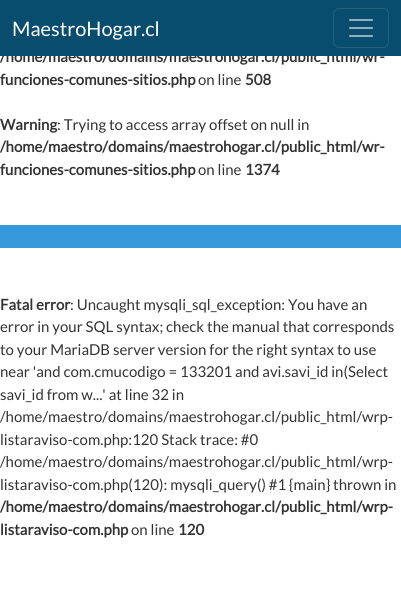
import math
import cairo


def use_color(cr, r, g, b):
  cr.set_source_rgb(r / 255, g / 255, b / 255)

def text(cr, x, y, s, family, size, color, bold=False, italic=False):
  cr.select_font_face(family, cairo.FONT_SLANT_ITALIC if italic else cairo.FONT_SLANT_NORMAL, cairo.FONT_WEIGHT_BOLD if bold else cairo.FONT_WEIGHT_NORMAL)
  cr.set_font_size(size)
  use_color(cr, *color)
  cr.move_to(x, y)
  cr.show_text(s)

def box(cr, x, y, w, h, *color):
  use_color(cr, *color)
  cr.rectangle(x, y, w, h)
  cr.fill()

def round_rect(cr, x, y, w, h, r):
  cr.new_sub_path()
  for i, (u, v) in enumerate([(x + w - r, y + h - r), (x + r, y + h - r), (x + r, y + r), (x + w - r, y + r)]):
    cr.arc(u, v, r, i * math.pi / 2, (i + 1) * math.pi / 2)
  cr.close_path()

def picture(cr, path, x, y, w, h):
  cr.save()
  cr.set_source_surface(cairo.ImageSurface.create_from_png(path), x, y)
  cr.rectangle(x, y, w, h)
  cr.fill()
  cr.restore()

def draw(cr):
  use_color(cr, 255, 255, 255)
  cr.paint()
  box(cr, 0, 225, 401, 23, 52, 152, 219)
  text(cr, 0, 62, "/home/maestro/domains/maestrohogar.cl/public_html/wr-", "Lato", 15, (51, 51, 51), bold=True)
  box(cr, 0, 0, 401, 56, 8, 77, 110)
  round_rect(cr, 333.5, 8.5, 55, 39, 5.5)
  use_color(cr, 33, 95, 125)
  cr.set_line_width(1)
  cr.stroke()
  picture(cr, "img_01.png", 349, 19, 24, 18)
  text(cr, 12, 36, "MaestroHogar.cl", "Lato", 20, (255, 255, 255))
  text(cr, 0, 85, "funciones-comunes-sitios.php", "Lato", 15, (51, 51, 51), bold=True)
  text(cr, 198, 85, "on line", "Lato", 15, (51, 51, 51))
  text(cr, 245, 85, "508", "Lato", 15, (51, 51, 51), bold=True)
  text(cr, 0, 130, "Warning", "Lato", 15, (51, 51, 51), bold=True)
  text(cr, 57, 130, ": Trying to access array offset on null in", "Lato", 15, (51, 51, 51))
  text(cr, 0, 152, "/home/maestro/domains/maestrohogar.cl/public_html/wr-", "Lato", 15, (51, 51, 51), bold=True)
  text(cr, 0, 175, "funciones-comunes-sitios.php", "Lato", 15, (51, 51, 51), bold=True)
  text(cr, 198, 175, "on line", "Lato", 15, (51, 51, 51))
  text(cr, 245, 175, "1374", "Lato", 15, (51, 51, 51), bold=True)
  text(cr, 0, 310, "Fatal error", "Lato", 15, (51, 51, 51), bold=True)
  text(cr, 70, 310, ": Uncaught mysqli_sql_exception: You have an", "Lato", 15, (51, 51, 51))
  text(cr, 0, 332, "error in your SQL syntax; check the manual that corresponds", "Lato", 15, (51, 51, 51))
  text(cr, 0, 355, "to your MariaDB server version for the right syntax to use", "Lato", 15, (51, 51, 51))
  text(cr, 0, 377, "near 'and com.cmucodigo = 133201 and avi.savi_id in(Select", "Lato", 15, (51, 51, 51))
  text(cr, 0, 400, "savi_id from w...' at line 32 in", "Lato", 15, (51, 51, 51))
  text(cr, 0, 422, "/home/maestro/domains/maestrohogar.cl/public_html/wrp-", "Lato", 15, (51, 51, 51))
  text(cr, 0, 445, "listaraviso-com.php:120 Stack trace: #0", "Lato", 15, (51, 51, 51))
  text(cr, 0, 467, "/home/maestro/domains/maestrohogar.cl/public_html/wrp-", "Lato", 15, (51, 51, 51))
  text(cr, 0, 490, "listaraviso-com.php(120): mysqli_query() #1 {main} thrown in", "Lato", 15, (51, 51, 51))
  text(cr, 0, 512, "/home/maestro/domains/maestrohogar.cl/public_html/wrp-", "Lato", 15, (51, 51, 51), bold=True)
  text(cr, 0, 535, "listaraviso-com.php", "Lato", 15, (51, 51, 51), bold=True)
  text(cr, 131, 535, "on line", "Lato", 15, (51, 51, 51))
  text(cr, 178, 535, "120", "Lato", 15, (51, 51, 51), bold=True)


surface = cairo.ImageSurface(cairo.FORMAT_RGB24, 401, 616)
cr = cairo.Context(surface)
options = cairo.FontOptions()
options.set_hint_metrics(cairo.HINT_METRICS_OFF)
options.set_hint_style(cairo.HINT_STYLE_NONE)
cr.set_font_options(options)
cr.set_miter_limit(4)
draw(cr)
surface.write_to_png("out.png")
